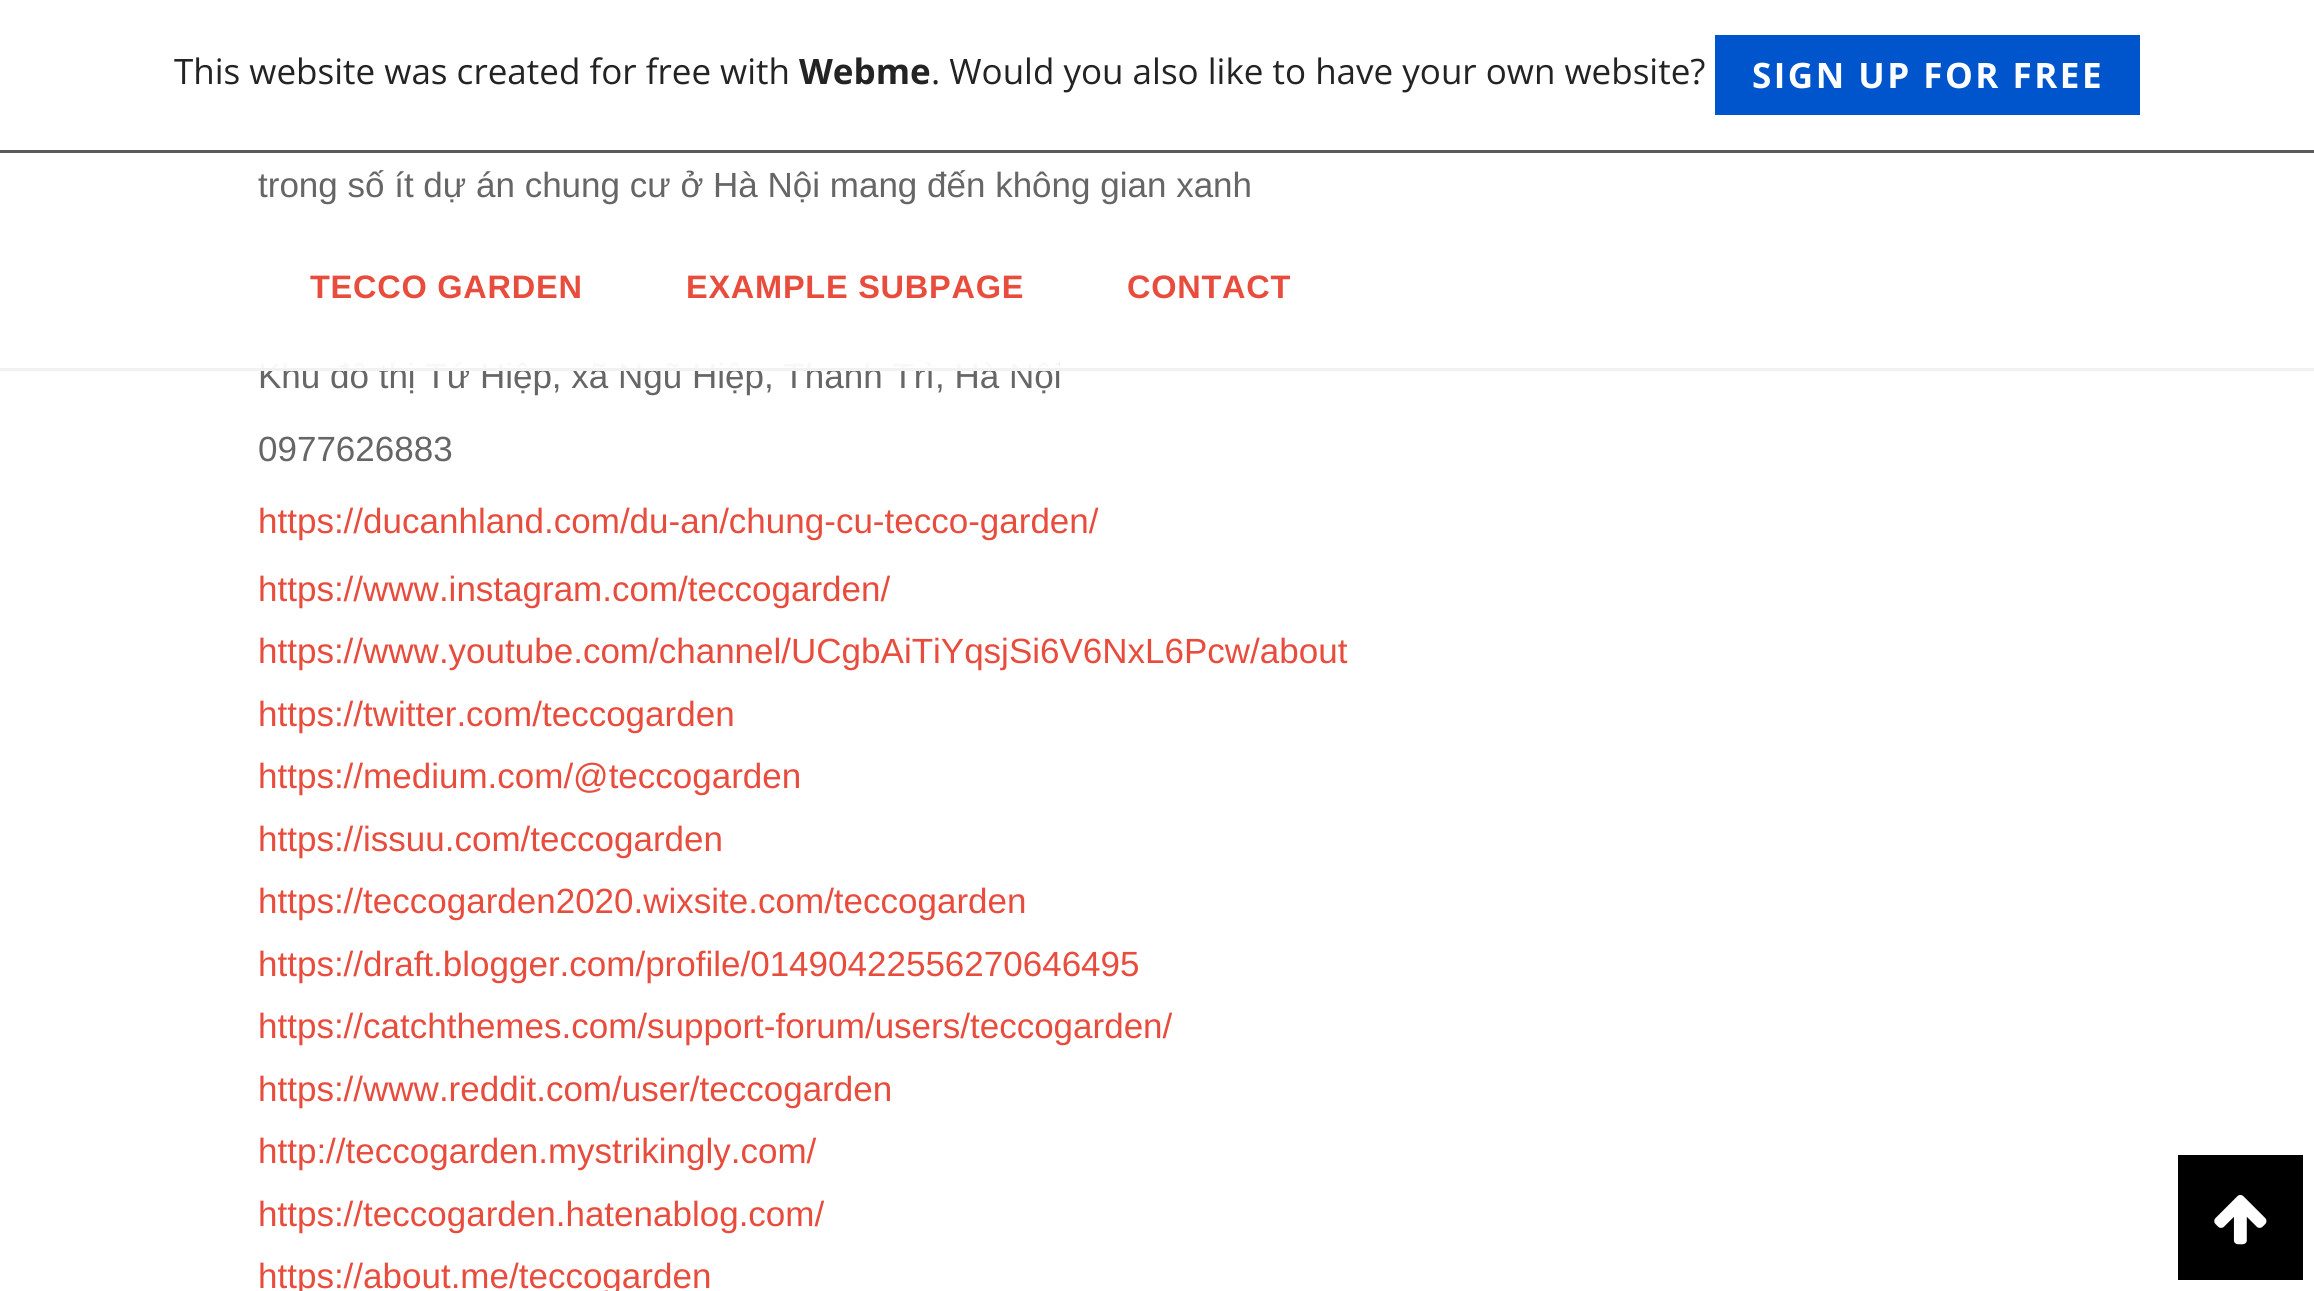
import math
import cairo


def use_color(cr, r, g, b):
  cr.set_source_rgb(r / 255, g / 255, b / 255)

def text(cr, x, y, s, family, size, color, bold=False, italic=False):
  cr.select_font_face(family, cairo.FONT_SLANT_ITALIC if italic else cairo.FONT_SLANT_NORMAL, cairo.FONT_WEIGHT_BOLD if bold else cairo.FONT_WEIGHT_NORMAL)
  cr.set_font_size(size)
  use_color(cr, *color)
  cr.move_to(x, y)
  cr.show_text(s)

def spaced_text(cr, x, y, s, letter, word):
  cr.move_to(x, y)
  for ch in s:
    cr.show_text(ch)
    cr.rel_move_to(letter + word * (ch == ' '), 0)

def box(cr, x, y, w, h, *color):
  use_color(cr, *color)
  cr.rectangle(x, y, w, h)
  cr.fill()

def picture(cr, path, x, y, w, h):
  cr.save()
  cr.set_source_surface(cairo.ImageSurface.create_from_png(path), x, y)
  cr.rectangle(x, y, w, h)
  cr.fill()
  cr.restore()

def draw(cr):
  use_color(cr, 255, 255, 255)
  cr.paint()
  box(cr, 0, 150, 2314, 3, 90, 90, 90)
  box(cr, 1715, 35, 425, 80, 0, 85, 204)
  box(cr, 2178, 1155, 125, 125, 0, 0, 0)
  picture(cr, "img_01.png", 2214, 1195, 53, 50)
  text(cr, 174, 84, "This website was created for free with", "Open Sans", 35, (35, 35, 35))
  text(cr, 799, 84, "Webme", "Open Sans", 35, (35, 35, 35), bold=True)
  text(cr, 931, 84, ". Would you also like to have your own website?", "Open Sans", 35, (35, 35, 35))
  cr.select_font_face("Open Sans", cairo.FONT_SLANT_NORMAL, cairo.FONT_WEIGHT_BOLD)
  use_color(cr, 255, 255, 255)
  spaced_text(cr, 1752, 88, "SIGN UP FOR FREE", 2.5, 0)
  text(cr, 258, 197, "trong số ít dự án chung cư ở Hà Nội mang đến không gian xanh", "Liberation Sans", 35, (102, 102, 102))
  text(cr, 258, 388, "Khu đô thị Tứ Hiệp, xã Ngũ Hiệp, Thanh Trì, Hà Nội", "Liberation Sans", 35, (102, 102, 102))
  text(cr, 258, 461, "0977626883", "Liberation Sans", 35, (102, 102, 102))
  text(cr, 258, 533, "https://ducanhland.com/du-an/chung-cu-tecco-garden/", "Liberation Sans", 35, (232, 76, 61))
  text(cr, 258, 601, "https://www.instagram.com/teccogarden/", "Liberation Sans", 35, (232, 76, 61))
  text(cr, 258, 663, "https://www.youtube.com/channel/UCgbAiTiYqsjSi6V6NxL6Pcw/about", "Liberation Sans", 35, (232, 76, 61))
  text(cr, 258, 726, "https://twitter.com/teccogarden", "Liberation Sans", 35, (232, 76, 61))
  text(cr, 258, 788, "https://medium.com/@teccogarden", "Liberation Sans", 35, (232, 76, 61))
  text(cr, 258, 851, "https://issuu.com/teccogarden", "Liberation Sans", 35, (232, 76, 61))
  text(cr, 258, 913, "https://teccogarden2020.wixsite.com/teccogarden", "Liberation Sans", 35, (232, 76, 61))
  text(cr, 258, 976, "https://draft.blogger.com/profile/01490422556270646495", "Liberation Sans", 35, (232, 76, 61))
  text(cr, 258, 1038, "https://catchthemes.com/support-forum/users/teccogarden/", "Liberation Sans", 35, (232, 76, 61))
  text(cr, 258, 1101, "https://www.reddit.com/user/teccogarden", "Liberation Sans", 35, (232, 76, 61))
  text(cr, 258, 1163, "http://teccogarden.mystrikingly.com/", "Liberation Sans", 35, (232, 76, 61))
  text(cr, 258, 1226, "https://teccogarden.hatenablog.com/", "Liberation Sans", 35, (232, 76, 61))
  text(cr, 258, 1288, "https://about.me/teccogarden", "Liberation Sans", 35, (232, 76, 61))
  cr.set_source_rgba(1, 1, 1, 0.95)
  cr.rectangle(260, 362, 799, 6)
  cr.fill()
  box(cr, 0, 368, 2314, 3, 241, 241, 241)
  cr.select_font_face("Liberation Sans", cairo.FONT_SLANT_NORMAL, cairo.FONT_WEIGHT_BOLD)
  cr.set_font_size(32.5)
  use_color(cr, 232, 76, 61)
  spaced_text(cr, 310, 298, "TECCO GARDEN", 0.75, 0)
  spaced_text(cr, 686, 298, "EXAMPLE SUBPAGE", 0.75, 0)
  spaced_text(cr, 1127, 298, "CONTACT", 0.75, 0)


surface = cairo.ImageSurface(cairo.FORMAT_RGB24, 2314, 1291)
cr = cairo.Context(surface)
options = cairo.FontOptions()
options.set_hint_metrics(cairo.HINT_METRICS_OFF)
options.set_hint_style(cairo.HINT_STYLE_NONE)
cr.set_font_options(options)
cr.set_miter_limit(4)
draw(cr)
surface.write_to_png("out.png")
